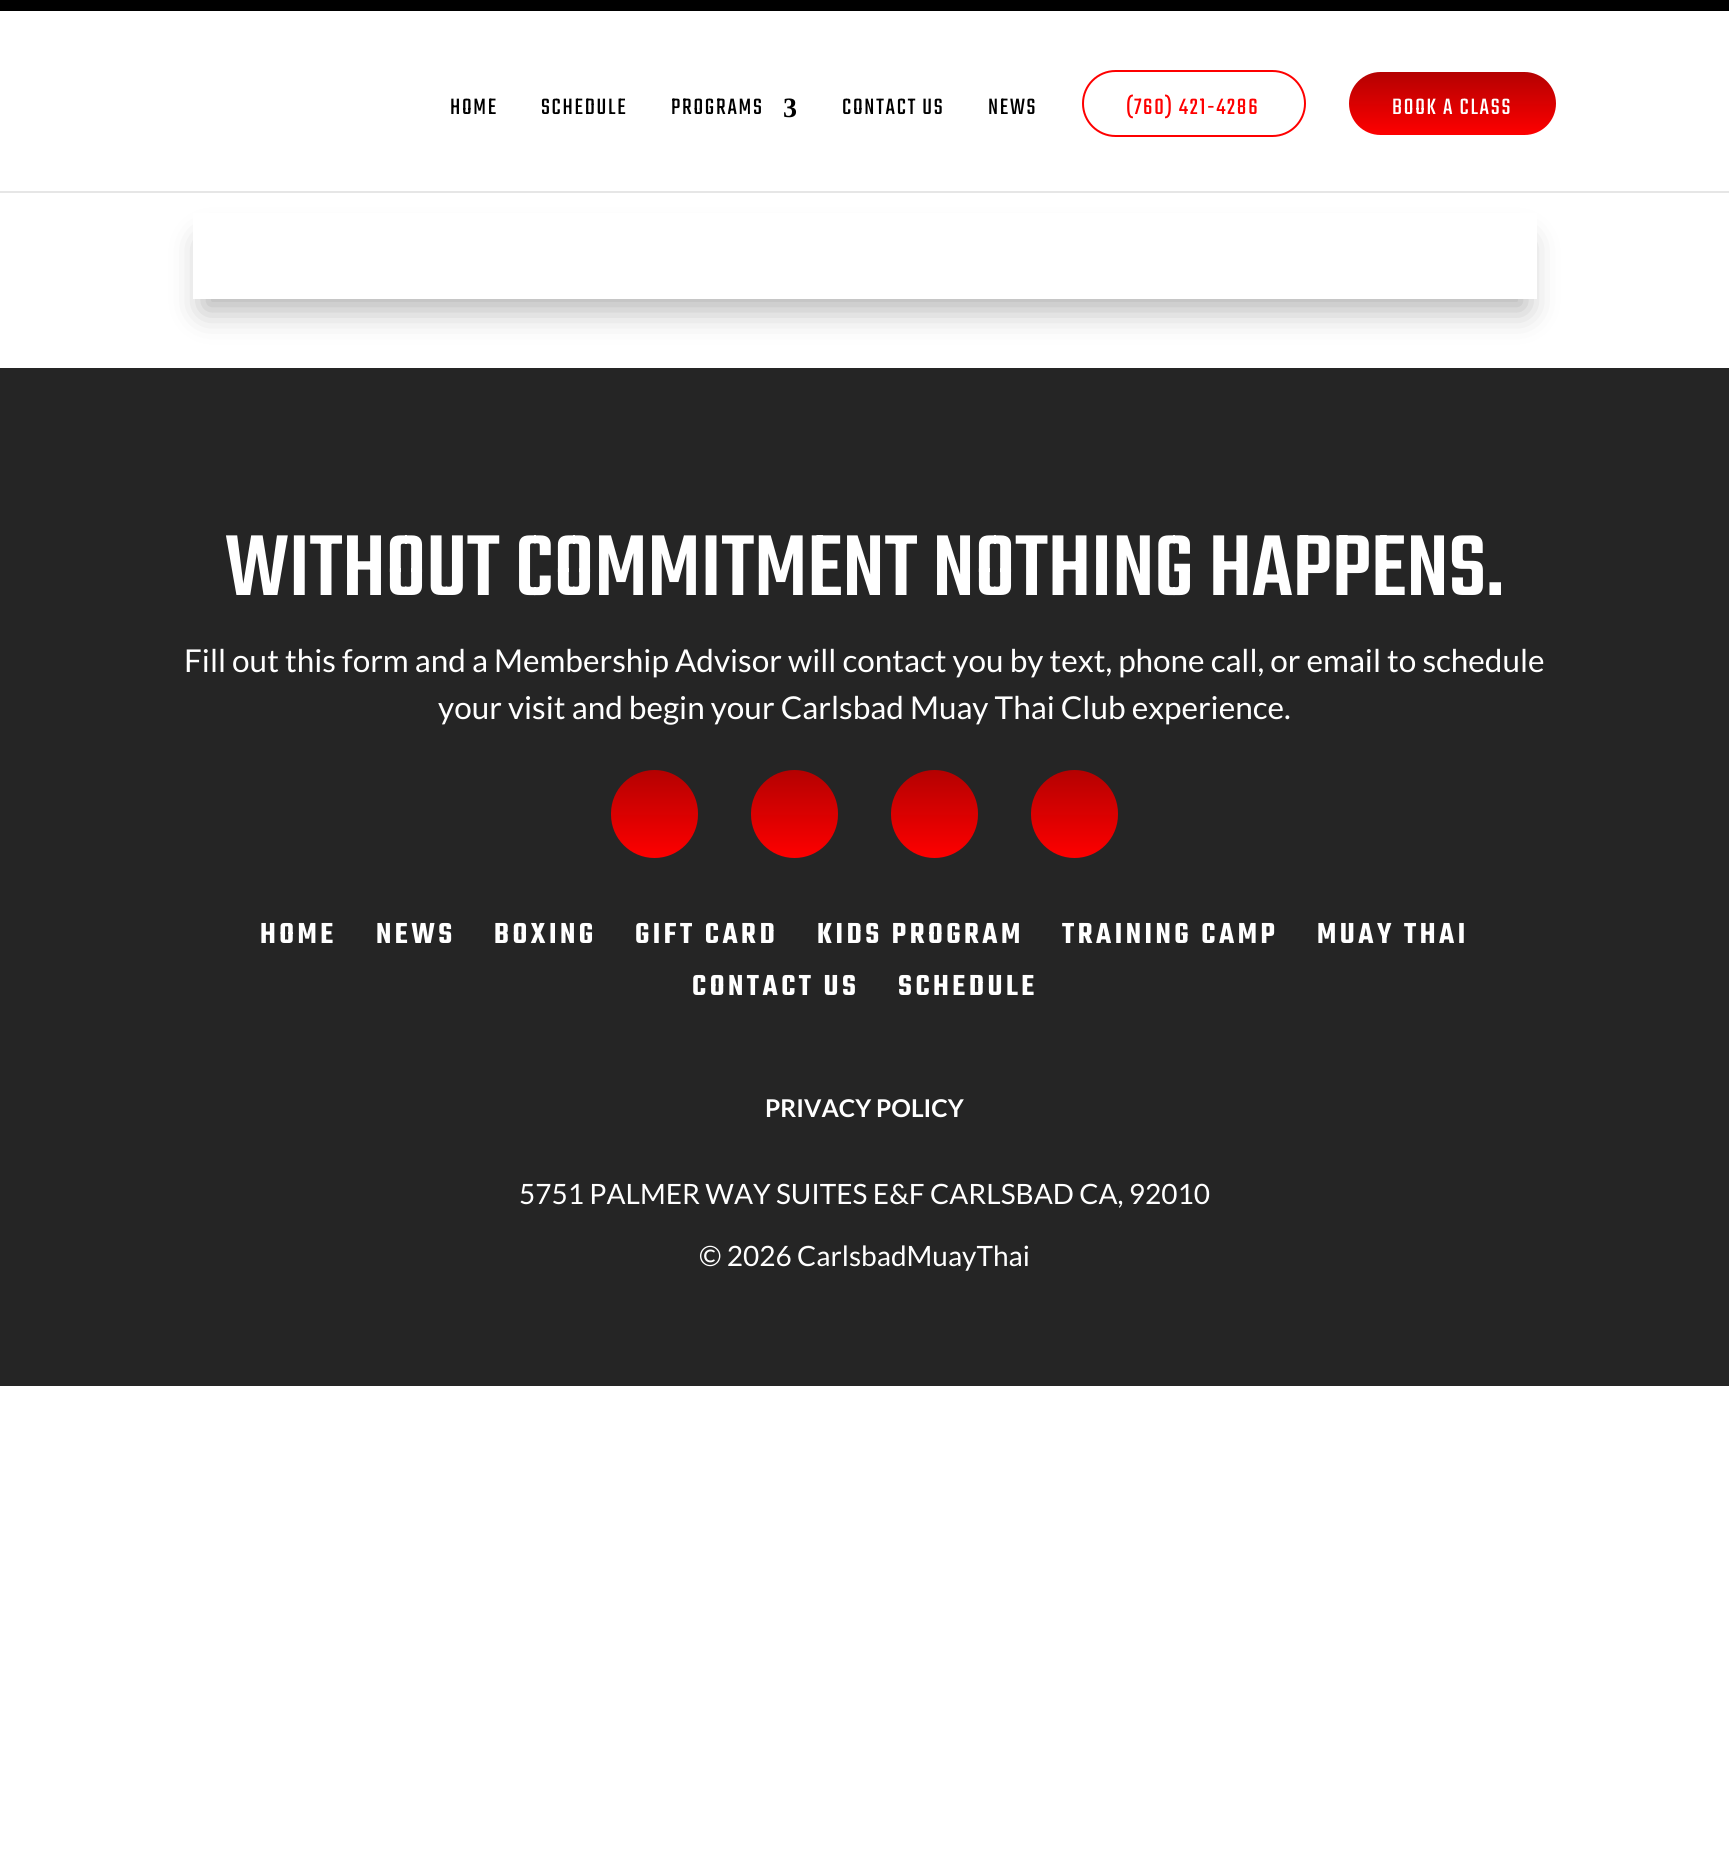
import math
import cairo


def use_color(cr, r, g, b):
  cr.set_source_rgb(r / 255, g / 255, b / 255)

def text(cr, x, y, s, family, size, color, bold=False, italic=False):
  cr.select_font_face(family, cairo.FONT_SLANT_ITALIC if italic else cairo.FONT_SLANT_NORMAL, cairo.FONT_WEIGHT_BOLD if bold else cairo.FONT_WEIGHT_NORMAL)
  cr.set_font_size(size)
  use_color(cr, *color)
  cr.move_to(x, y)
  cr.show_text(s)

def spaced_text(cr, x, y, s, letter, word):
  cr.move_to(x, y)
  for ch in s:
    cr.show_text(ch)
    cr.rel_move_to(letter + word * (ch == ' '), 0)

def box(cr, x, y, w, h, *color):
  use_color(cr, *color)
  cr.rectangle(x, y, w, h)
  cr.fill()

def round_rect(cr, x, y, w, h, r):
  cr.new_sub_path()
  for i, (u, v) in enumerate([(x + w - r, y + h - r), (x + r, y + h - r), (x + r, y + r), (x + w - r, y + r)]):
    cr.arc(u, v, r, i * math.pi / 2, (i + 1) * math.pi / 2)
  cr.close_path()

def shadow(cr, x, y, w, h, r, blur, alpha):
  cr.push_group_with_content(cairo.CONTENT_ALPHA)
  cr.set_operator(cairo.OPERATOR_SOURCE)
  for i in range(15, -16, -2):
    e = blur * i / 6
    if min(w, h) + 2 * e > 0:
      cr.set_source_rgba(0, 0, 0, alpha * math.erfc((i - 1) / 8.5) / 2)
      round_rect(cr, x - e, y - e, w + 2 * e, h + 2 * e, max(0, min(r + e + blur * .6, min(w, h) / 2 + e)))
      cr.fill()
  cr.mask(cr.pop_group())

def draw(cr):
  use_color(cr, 255, 255, 255)
  cr.paint()
  box(cr, 0, 0, 1729, 11, 0, 0, 0)
  box(cr, 0, 191, 1729, 2, 230, 230, 230)
  round_rect(cr, 1083, 71, 222, 65, 32.5)
  use_color(cr, 254, 0, 0)
  cr.stroke()
  gradient = cairo.LinearGradient(1453, 72, 1453, 135)
  gradient.add_color_stop_rgba(0, 0.706, 0.004, 0.004, 1)
  gradient.add_color_stop_rgba(1, 0.996, 0, 0, 1)
  cr.set_source(gradient)
  round_rect(cr, 1349, 72, 207, 63, 31.5)
  cr.fill()
  use_color(cr, 0, 0, 0)
  shadow(cr, 203, 242, 1323, 68, 0, 16, 0.3)
  box(cr, 193, 213, 1344, 86, 255, 255, 255)
  box(cr, 0, 368, 1729, 1018, 37, 37, 37)
  gradient = cairo.LinearGradient(655, 770, 655, 858)
  gradient.add_color_stop_rgba(0, 0.706, 0.004, 0.004, 1)
  gradient.add_color_stop_rgba(1, 0.996, 0, 0, 1)
  cr.set_source(gradient)
  round_rect(cr, 611, 770, 87, 88, 43.5)
  cr.fill()
  gradient = cairo.LinearGradient(795, 770, 795, 858)
  gradient.add_color_stop_rgba(0, 0.706, 0.004, 0.004, 1)
  gradient.add_color_stop_rgba(1, 0.996, 0, 0, 1)
  cr.set_source(gradient)
  round_rect(cr, 751, 770, 87, 88, 43.5)
  cr.fill()
  gradient = cairo.LinearGradient(935, 770, 935, 858)
  gradient.add_color_stop_rgba(0, 0.706, 0.004, 0.004, 1)
  gradient.add_color_stop_rgba(1, 0.996, 0, 0, 1)
  cr.set_source(gradient)
  round_rect(cr, 891, 770, 87, 88, 43.5)
  cr.fill()
  gradient = cairo.LinearGradient(1075, 770, 1075, 858)
  gradient.add_color_stop_rgba(0, 0.706, 0.004, 0.004, 1)
  gradient.add_color_stop_rgba(1, 0.996, 0, 0, 1)
  cr.set_source(gradient)
  round_rect(cr, 1031, 770, 87, 88, 43.5)
  cr.fill()
  cr.select_font_face("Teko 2 Light")
  cr.set_font_size(24.5)
  use_color(cr, 0, 0, 0)
  spaced_text(cr, 450, 114, "HOME", 1.75, 0)
  spaced_text(cr, 541, 114, "SCHEDULE", 1.75, 0)
  spaced_text(cr, 671, 114, "PROGRAMS", 1.75, 0)
  cr.select_font_face("Liberation Serif", cairo.FONT_SLANT_NORMAL, cairo.FONT_WEIGHT_BOLD)
  cr.set_font_size(28)
  spaced_text(cr, 783, 117, "3", 1.75, 0)
  cr.select_font_face("Teko 2 Light")
  cr.set_font_size(24.5)
  spaced_text(cr, 842, 114, "CONTACT US", 1.75, 0)
  spaced_text(cr, 988, 114, "NEWS", 1.75, 0)
  use_color(cr, 254, 0, 0)
  spaced_text(cr, 1126, 114, "(760) 421-4286", 1.75, 0)
  use_color(cr, 255, 255, 255)
  spaced_text(cr, 1392, 114, "BOOK A CLASS", 1.75, 0)
  text(cr, 225, 595, "WITHOUT COMMITMENT NOTHING HAPPENS.", "Teko Light", 94.5, (255, 255, 255))
  text(cr, 184, 672, "Fill out this form and a Membership Advisor will contact you by text, phone call, or email to schedule", "Lato", 31.5, (255, 255, 255))
  text(cr, 438, 719, "your visit and begin your Carlsbad Muay Thai Club experience.", "Lato", 31.5, (255, 255, 255))
  cr.select_font_face("Teko SemiBold")
  spaced_text(cr, 260, 943, "HOME", 3.5, 0)
  spaced_text(cr, 376, 943, "NEWS", 3.5, 0)
  spaced_text(cr, 494, 943, "BOXING", 3.5, 0)
  spaced_text(cr, 635, 943, "GIFT CARD", 3.5, 0)
  spaced_text(cr, 817, 943, "KIDS PROGRAM", 3.5, 0)
  spaced_text(cr, 1062, 943, "TRAINING CAMP", 3.5, 0)
  spaced_text(cr, 1317, 943, "MUAY THAI", 3.5, 0)
  spaced_text(cr, 692, 995, "CONTACT US", 3.5, 0)
  spaced_text(cr, 898, 995, "SCHEDULE", 3.5, 0)
  text(cr, 765, 1117, "PRIVACY POLICY", "Lato", 24.5, (255, 255, 255), bold=True)
  text(cr, 519, 1204, "5751 PALMER WAY SUITES E&F CARLSBAD CA, 92010", "Lato", 28, (255, 255, 255))
  text(cr, 699, 1266, "© 2026 CarlsbadMuayThai", "Lato", 28, (255, 255, 255))


surface = cairo.ImageSurface(cairo.FORMAT_RGB24, 1729, 1864)
cr = cairo.Context(surface)
options = cairo.FontOptions()
options.set_hint_metrics(cairo.HINT_METRICS_OFF)
options.set_hint_style(cairo.HINT_STYLE_NONE)
cr.set_font_options(options)
cr.set_miter_limit(4)
draw(cr)
surface.write_to_png("out.png")
